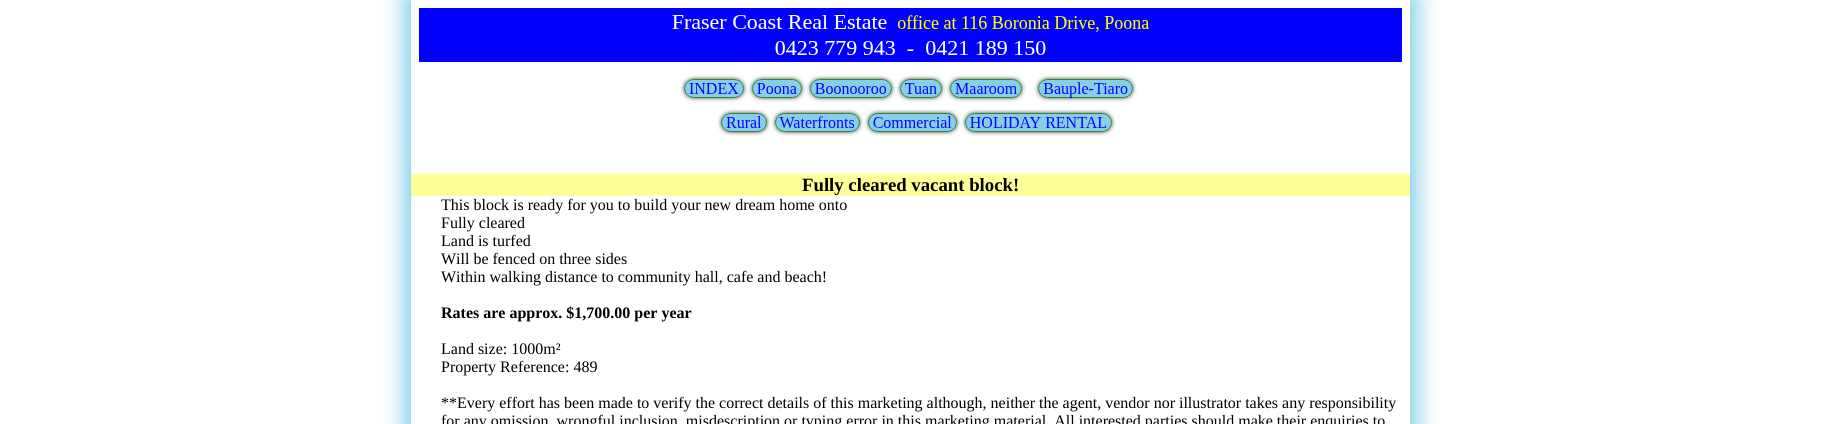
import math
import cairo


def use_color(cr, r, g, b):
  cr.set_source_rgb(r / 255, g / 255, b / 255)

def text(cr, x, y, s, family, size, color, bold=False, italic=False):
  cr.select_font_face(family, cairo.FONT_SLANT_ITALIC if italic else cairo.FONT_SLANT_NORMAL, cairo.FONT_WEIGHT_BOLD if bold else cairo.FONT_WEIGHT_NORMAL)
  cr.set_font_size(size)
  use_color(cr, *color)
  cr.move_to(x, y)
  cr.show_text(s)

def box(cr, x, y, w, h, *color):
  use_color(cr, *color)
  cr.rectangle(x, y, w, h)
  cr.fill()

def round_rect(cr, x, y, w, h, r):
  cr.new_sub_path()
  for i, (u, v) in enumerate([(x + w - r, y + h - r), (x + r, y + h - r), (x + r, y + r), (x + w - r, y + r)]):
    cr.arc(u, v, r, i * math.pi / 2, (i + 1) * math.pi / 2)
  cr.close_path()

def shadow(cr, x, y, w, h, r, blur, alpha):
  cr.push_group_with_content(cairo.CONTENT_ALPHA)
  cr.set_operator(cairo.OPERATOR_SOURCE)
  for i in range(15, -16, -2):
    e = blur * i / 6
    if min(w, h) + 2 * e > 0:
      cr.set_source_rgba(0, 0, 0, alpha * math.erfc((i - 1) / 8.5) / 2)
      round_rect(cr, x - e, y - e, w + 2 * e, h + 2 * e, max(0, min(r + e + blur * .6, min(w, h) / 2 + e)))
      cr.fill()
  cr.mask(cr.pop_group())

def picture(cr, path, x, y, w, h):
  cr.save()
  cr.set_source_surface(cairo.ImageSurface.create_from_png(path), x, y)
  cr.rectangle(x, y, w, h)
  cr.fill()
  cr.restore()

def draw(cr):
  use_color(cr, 255, 255, 255)
  cr.paint()
  cr.save()
  cr.set_fill_rule(cairo.FILL_RULE_EVEN_ODD)
  cr.new_path()
  cr.move_to(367, 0)
  cr.line_to(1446, 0)
  cr.line_to(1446, 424)
  cr.line_to(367, 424)
  cr.close_path()
  cr.move_to(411, 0)
  cr.line_to(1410, 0)
  cr.line_to(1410, 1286)
  cr.line_to(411, 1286)
  cr.close_path()
  cr.clip()
  use_color(cr, 135, 206, 235)
  shadow(cr, 407, 0, 999, 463, 0, 13, 1)
  cr.restore()
  cr.save()
  cr.set_fill_rule(cairo.FILL_RULE_EVEN_ODD)
  cr.new_path()
  cr.move_to(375, 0)
  cr.line_to(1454, 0)
  cr.line_to(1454, 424)
  cr.line_to(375, 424)
  cr.close_path()
  cr.move_to(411, 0)
  cr.line_to(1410, 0)
  cr.line_to(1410, 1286)
  cr.line_to(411, 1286)
  cr.close_path()
  cr.clip()
  use_color(cr, 135, 206, 235)
  shadow(cr, 415, 0, 999, 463, 0, 13, 1)
  cr.restore()
  picture(cr, "img_01.png", 419, 8, 983, 128)
  box(cr, 411, 174, 999, 22, 255, 255, 153)
  text(cr, 802, 191, "Fully cleared vacant block!", "Liberation Serif", 18.75, (0, 0, 0), bold=True)
  text(cr, 441, 210, "This block is ready for you to build your new dream home onto", "Liberation Serif", 16, (0, 0, 0))
  text(cr, 441, 228, "Fully cleared", "Liberation Serif", 16, (0, 0, 0))
  text(cr, 441, 246, "Land is turfed", "Liberation Serif", 16, (0, 0, 0))
  text(cr, 441, 264, "Will be fenced on three sides", "Liberation Serif", 16, (0, 0, 0))
  text(cr, 441, 282, "Within walking distance to community hall, cafe and beach!", "Liberation Serif", 16, (0, 0, 0))
  text(cr, 441, 318, "Rates are approx. $1,700.00 per year", "Liberation Serif", 16, (0, 0, 0), bold=True)
  text(cr, 441, 354, "Land size: 1000m²", "Liberation Serif", 16, (0, 0, 0))
  text(cr, 441, 372, "Property Reference: 489", "Liberation Serif", 16, (0, 0, 0))
  text(cr, 441, 408, "**Every effort has been made to verify the correct details of this marketing although, neither the agent, vendor nor illustrator takes any responsibility", "Liberation Serif", 16, (0, 0, 0))
  text(cr, 441, 426, "for any omission, wrongful inclusion, misdescription or typing error in this marketing material. All interested parties should make their enquiries to", "Liberation Serif", 16, (0, 0, 0))


surface = cairo.ImageSurface(cairo.FORMAT_RGB24, 1821, 424)
cr = cairo.Context(surface)
options = cairo.FontOptions()
options.set_hint_metrics(cairo.HINT_METRICS_OFF)
options.set_hint_style(cairo.HINT_STYLE_NONE)
cr.set_font_options(options)
cr.set_miter_limit(4)
draw(cr)
surface.write_to_png("out.png")
